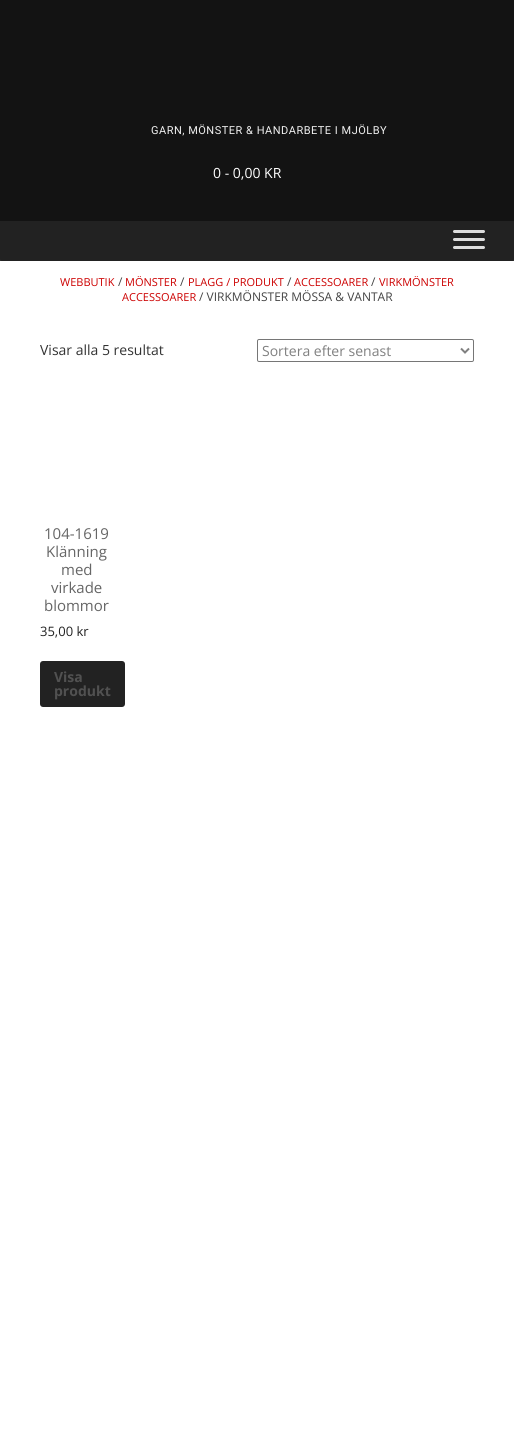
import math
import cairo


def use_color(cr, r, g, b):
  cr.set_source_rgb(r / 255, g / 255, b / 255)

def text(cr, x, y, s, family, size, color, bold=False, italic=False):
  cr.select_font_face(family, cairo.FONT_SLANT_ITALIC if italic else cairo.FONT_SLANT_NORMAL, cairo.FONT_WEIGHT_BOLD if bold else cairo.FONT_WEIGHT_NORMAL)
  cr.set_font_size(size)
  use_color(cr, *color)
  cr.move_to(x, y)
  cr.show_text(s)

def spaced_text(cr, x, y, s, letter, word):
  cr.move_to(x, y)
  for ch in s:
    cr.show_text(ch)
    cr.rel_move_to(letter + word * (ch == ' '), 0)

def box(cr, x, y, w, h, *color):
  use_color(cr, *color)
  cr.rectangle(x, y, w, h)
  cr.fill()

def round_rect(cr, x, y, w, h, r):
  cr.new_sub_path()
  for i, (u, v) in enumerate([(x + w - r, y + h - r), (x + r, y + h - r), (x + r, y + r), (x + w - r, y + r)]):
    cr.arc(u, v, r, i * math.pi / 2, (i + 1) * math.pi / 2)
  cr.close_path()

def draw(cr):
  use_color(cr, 255, 255, 255)
  cr.paint()
  box(cr, 0, 0, 514, 221, 19, 19, 19)
  box(cr, 0, 259, 514, 2, 51, 51, 51)
  use_color(cr, 34, 34, 34)
  round_rect(cr, 0, 221, 514, 40, 2)
  cr.fill()
  box(cr, 0, 221, 2, 2, 34, 34, 34)
  box(cr, 512, 221, 2, 2, 34, 34, 34)
  use_color(cr, 221, 221, 221)
  round_rect(cr, 453, 230, 32, 3, 1.5)
  cr.fill()
  round_rect(cr, 453, 238, 32, 3, 1.5)
  cr.fill()
  round_rect(cr, 453, 246, 32, 3, 1.5)
  cr.fill()
  round_rect(cr, 257.5, 339.5, 216, 22, 1.5)
  use_color(cr, 118, 118, 118)
  cr.set_line_width(1)
  cr.stroke()
  cr.new_path()
  cr.move_to(461, 348.5)
  cr.line_to(465, 352.5)
  cr.line_to(469, 348.5)
  use_color(cr, 128, 128, 128)
  cr.set_line_width(2)
  cr.stroke()
  use_color(cr, 34, 34, 34)
  round_rect(cr, 40, 661, 85, 46, 3)
  cr.fill()
  cr.select_font_face("Roboto")
  cr.set_font_size(11)
  use_color(cr, 241, 241, 241)
  spaced_text(cr, 151, 134, "GARN, MÖNSTER & HANDARBETE I MJÖLBY", 0.5, 0)
  text(cr, 213, 178, "0 - 0,00 KR", "Open Sans", 14, (255, 255, 255))
  text(cr, 60, 286, "WEBBUTIK", "Open Sans", 11, (204, 0, 0))
  text(cr, 118, 286, "/", "Open Sans", 12, (68, 68, 68))
  text(cr, 125, 286, "MÖNSTER", "Open Sans", 11, (204, 0, 0))
  text(cr, 180, 286, "/", "Open Sans", 12, (68, 68, 68))
  text(cr, 188, 286, "PLAGG / PRODUKT", "Open Sans", 11, (204, 0, 0))
  text(cr, 287, 286, "/", "Open Sans", 12, (68, 68, 68))
  text(cr, 294, 286, "ACCESSOARER", "Open Sans", 11, (204, 0, 0))
  text(cr, 371, 286, "/", "Open Sans", 12, (68, 68, 68))
  text(cr, 379, 286, "VIRKMÖNSTER", "Open Sans", 11, (204, 0, 0))
  text(cr, 122, 301, "ACCESSOARER", "Open Sans", 11, (204, 0, 0))
  text(cr, 199, 301, "/ VIRKMÖNSTER MÖSSA & VANTAR", "Open Sans", 12, (68, 68, 68))
  text(cr, 40, 355, "Visar alla 5 resultat", "Open Sans", 14, (51, 51, 51))
  text(cr, 262, 356, "Sortera efter senast", "Open Sans", 14, (128, 128, 128))
  text(cr, 44, 539, "104-1619", "Open Sans", 15, (102, 102, 102))
  text(cr, 46, 557, "Klänning", "Open Sans", 15, (102, 102, 102))
  text(cr, 61, 575, "med", "Open Sans", 15, (102, 102, 102))
  text(cr, 51, 593, "virkade", "Open Sans", 15, (102, 102, 102))
  text(cr, 44, 611, "blommor", "Open Sans", 15, (102, 102, 102))
  text(cr, 40, 636, "35,00 kr", "Open Sans", 13, (34, 34, 34))
  text(cr, 54, 682, "Visa", "Open Sans", 14, (81, 81, 81), bold=True)
  text(cr, 54, 696, "produkt", "Open Sans", 14, (81, 81, 81), bold=True)


surface = cairo.ImageSurface(cairo.FORMAT_RGB24, 514, 1452)
cr = cairo.Context(surface)
options = cairo.FontOptions()
options.set_hint_metrics(cairo.HINT_METRICS_OFF)
options.set_hint_style(cairo.HINT_STYLE_NONE)
cr.set_font_options(options)
cr.set_miter_limit(4)
draw(cr)
surface.write_to_png("out.png")
